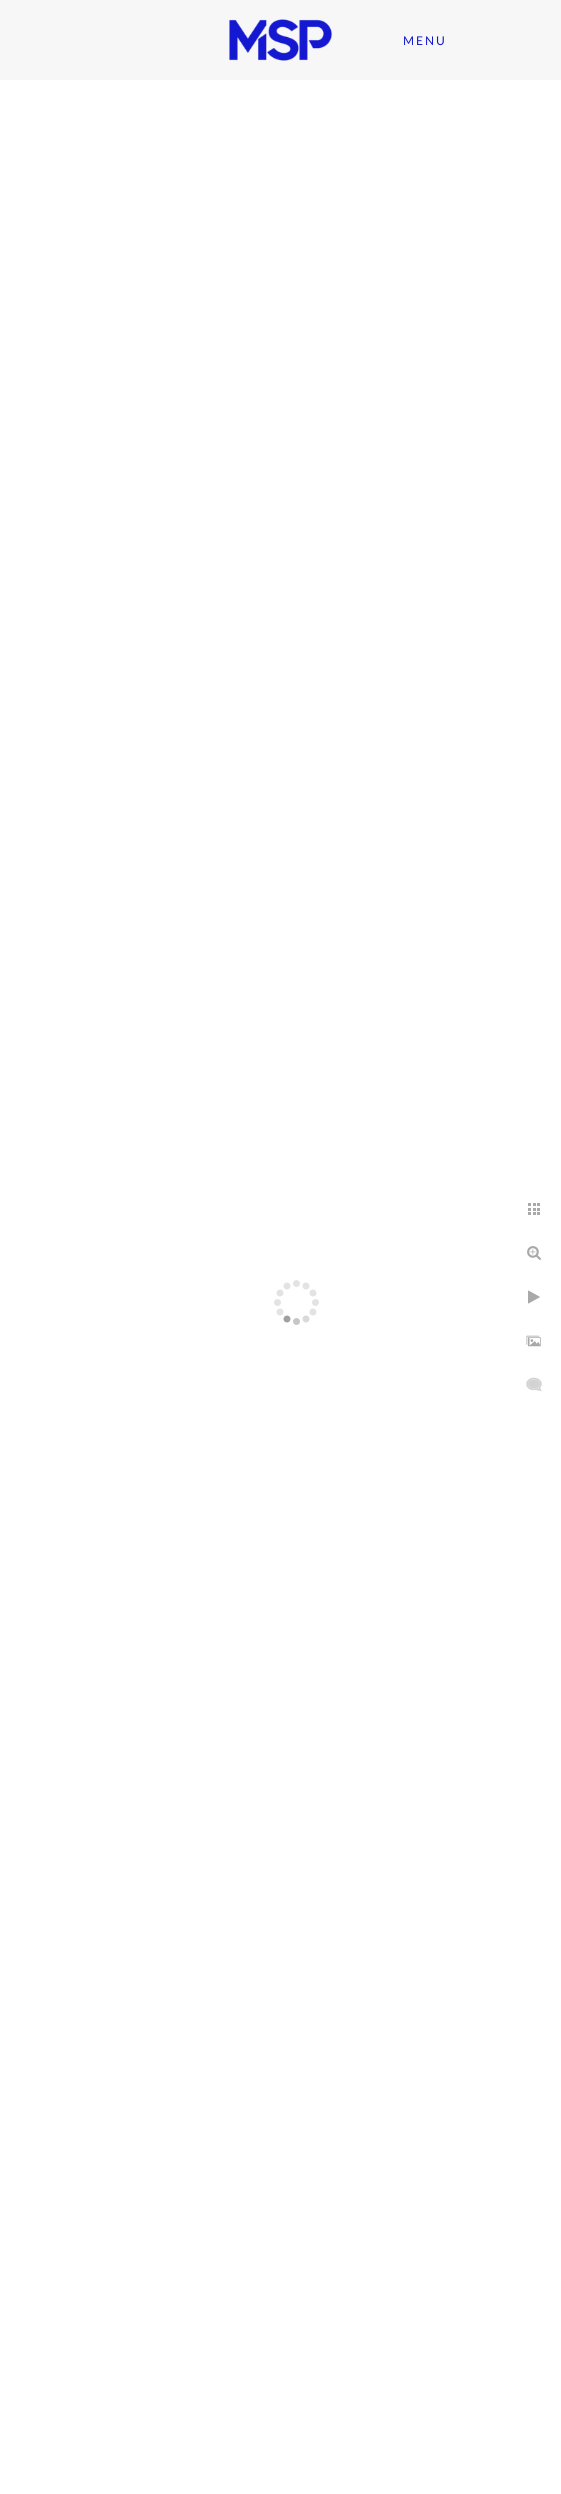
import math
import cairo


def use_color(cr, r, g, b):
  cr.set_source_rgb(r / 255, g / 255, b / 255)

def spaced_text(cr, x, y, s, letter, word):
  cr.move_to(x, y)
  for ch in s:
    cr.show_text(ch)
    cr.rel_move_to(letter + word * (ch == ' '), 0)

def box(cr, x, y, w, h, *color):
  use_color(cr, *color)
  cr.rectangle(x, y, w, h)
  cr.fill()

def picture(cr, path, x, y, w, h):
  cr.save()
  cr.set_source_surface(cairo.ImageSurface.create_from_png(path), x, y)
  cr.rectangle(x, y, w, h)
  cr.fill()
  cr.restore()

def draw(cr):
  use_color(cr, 255, 255, 255)
  cr.paint()
  box(cr, 0, 0, 561, 80, 247, 247, 247)
  picture(cr, "img_01.png", 229, 19, 104, 42)
  picture(cr, "img_02.png", 274, 1280, 45, 45)
  picture(cr, "img_03.png", 528, 1203, 12, 12)
  picture(cr, "img_04.png", 527, 1246, 14, 14)
  picture(cr, "img_05.png", 528, 1290, 12, 14)
  picture(cr, "img_06.png", 526, 1335, 15, 12)
  picture(cr, "img_07.png", 526, 1377, 16, 14)
  cr.select_font_face("Lato")
  cr.set_font_size(12)
  use_color(cr, 20, 26, 209)
  spaced_text(cr, 403, 45, "MENU", 2, 0)


surface = cairo.ImageSurface(cairo.FORMAT_RGB24, 561, 2494)
cr = cairo.Context(surface)
options = cairo.FontOptions()
options.set_hint_metrics(cairo.HINT_METRICS_OFF)
options.set_hint_style(cairo.HINT_STYLE_NONE)
cr.set_font_options(options)
cr.set_miter_limit(4)
draw(cr)
surface.write_to_png("out.png")
